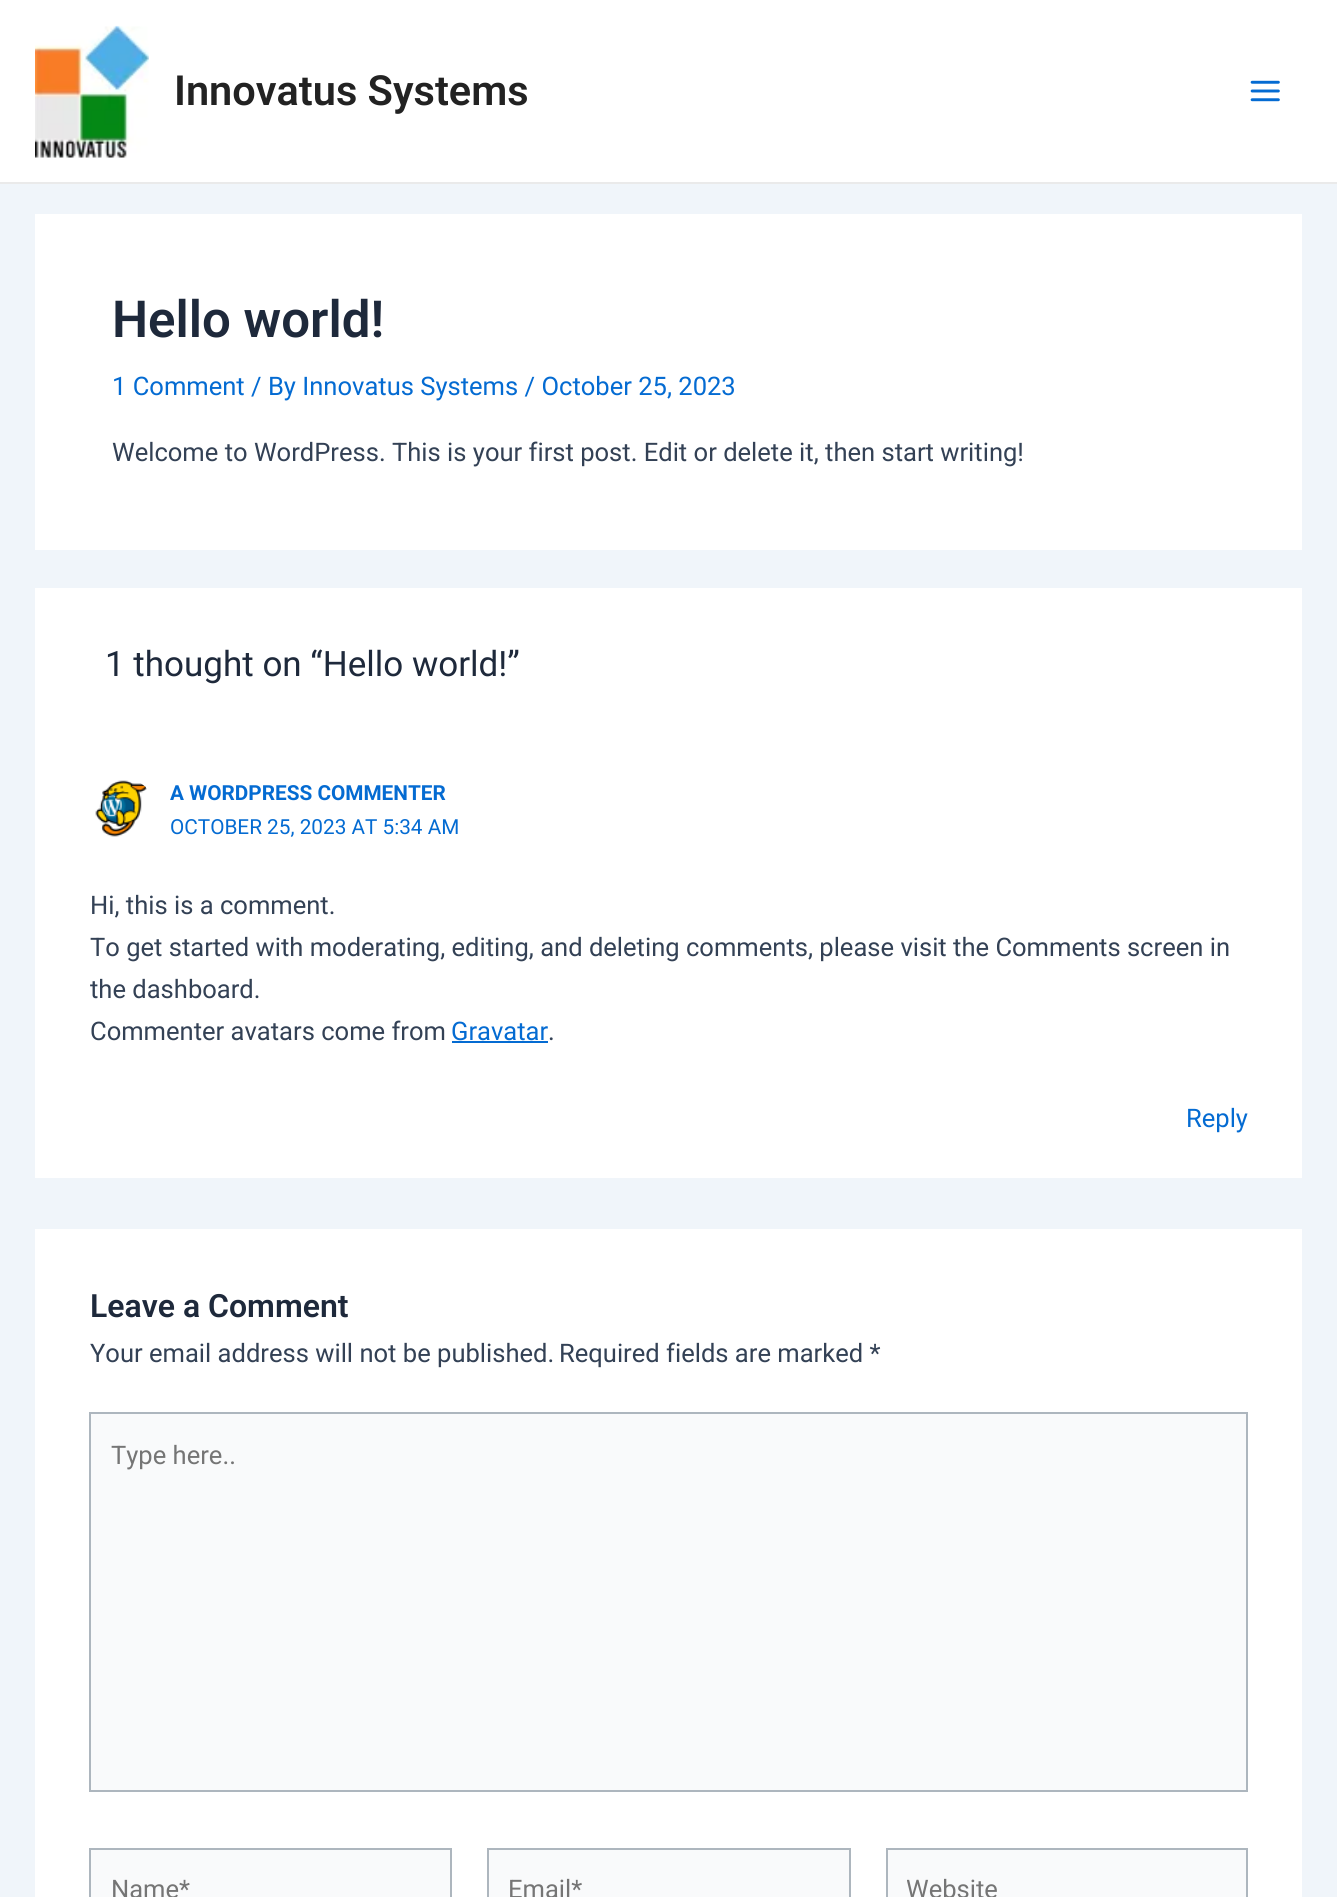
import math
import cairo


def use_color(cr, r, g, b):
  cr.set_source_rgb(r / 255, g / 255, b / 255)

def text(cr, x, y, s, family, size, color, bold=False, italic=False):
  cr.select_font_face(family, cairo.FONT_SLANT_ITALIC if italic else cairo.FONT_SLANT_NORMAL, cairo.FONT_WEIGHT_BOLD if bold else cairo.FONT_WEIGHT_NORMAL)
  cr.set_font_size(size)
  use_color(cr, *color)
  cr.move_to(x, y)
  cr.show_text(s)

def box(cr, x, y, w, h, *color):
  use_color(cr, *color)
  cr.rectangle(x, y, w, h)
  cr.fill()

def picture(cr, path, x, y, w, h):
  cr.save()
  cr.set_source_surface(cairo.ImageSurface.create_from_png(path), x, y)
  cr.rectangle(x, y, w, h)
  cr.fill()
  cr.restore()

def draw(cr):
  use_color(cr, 240, 245, 250)
  cr.paint()
  box(cr, 0, 0, 1337, 182, 255, 255, 255)
  box(cr, 0, 182, 1337, 2, 234, 234, 234)
  picture(cr, "img_01.png", 35, 25, 114, 133)
  picture(cr, "img_02.png", 1250, 80, 30, 22)
  box(cr, 35, 214, 1267, 336, 255, 255, 255)
  box(cr, 35, 588, 1267, 590, 255, 255, 255)
  picture(cr, "img_03.png", 95, 780, 52, 57)
  box(cr, 452, 1041, 96, 2, 4, 107, 210)
  box(cr, 35, 1229, 1267, 668, 255, 255, 255)
  use_color(cr, 249, 250, 251)
  cr.rectangle(90, 1413, 1157, 378)
  cr.fill_preserve()
  use_color(cr, 173, 182, 190)
  cr.stroke()
  use_color(cr, 249, 250, 251)
  cr.rectangle(90, 1849, 361, 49)
  cr.fill_preserve()
  use_color(cr, 173, 182, 190)
  cr.stroke()
  use_color(cr, 249, 250, 251)
  cr.rectangle(488, 1849, 362, 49)
  cr.fill_preserve()
  use_color(cr, 173, 182, 190)
  cr.stroke()
  use_color(cr, 249, 250, 251)
  cr.rectangle(887, 1849, 360, 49)
  cr.fill_preserve()
  use_color(cr, 173, 182, 190)
  cr.stroke()
  text(cr, 174, 105, "Innovatus Systems", "Roboto SemiBold", 41.5, (34, 34, 34))
  text(cr, 112, 337, "Hello world!", "Roboto SemiBold", 51, (30, 41, 59))
  text(cr, 112, 395, "1 Comment / By Innovatus Systems / October 25, 2023", "Roboto", 25.55, (4, 107, 210))
  text(cr, 112, 461, "Welcome to WordPress. This is your first post. Edit or delete it, then start writing!", "Roboto", 25.55, (51, 65, 85))
  text(cr, 105, 676, "1 thought on “Hello world!”", "Roboto", 35, (30, 41, 59))
  text(cr, 170, 800, "A WORDPRESS COMMENTER", "Roboto", 20.75, (4, 107, 210), bold=True)
  text(cr, 170, 834, "OCTOBER 25, 2023 AT 5:34 AM", "Roboto", 20.75, (4, 107, 210))
  text(cr, 90, 914, "Hi, this is a comment.", "Roboto", 25.55, (51, 65, 85))
  text(cr, 90, 956, "To get started with moderating, editing, and deleting comments, please visit the Comments screen in", "Roboto", 25.55, (51, 65, 85))
  text(cr, 90, 998, "the dashboard.", "Roboto", 25.55, (51, 65, 85))
  text(cr, 90, 1040, "Commenter avatars come from", "Roboto", 25.55, (51, 65, 85))
  text(cr, 451, 1040, "Gravatar", "Roboto", 25.55, (4, 107, 210))
  text(cr, 548, 1040, ".", "Roboto", 25.55, (51, 65, 85))
  text(cr, 1186, 1127, "Reply", "Roboto", 25.55, (4, 107, 210))
  text(cr, 90, 1317, "Leave a Comment", "Roboto SemiBold", 32, (30, 41, 59))
  text(cr, 90, 1362, "Your email address will not be published.", "Roboto", 25.55, (51, 65, 85))
  text(cr, 559, 1362, "Required fields are marked *", "Roboto", 25.55, (51, 65, 85))
  text(cr, 111, 1464, "Type here..", "Roboto", 25.55, (117, 117, 117))
  text(cr, 111, 1898, "Name*", "Roboto", 25.55, (117, 117, 117))
  text(cr, 508, 1898, "Email*", "Roboto", 25.55, (117, 117, 117))
  cr.save()
  cr.rectangle(907, 1874, 320, 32)
  cr.clip()
  text(cr, 906, 1898, "Website", "Roboto", 25.55, (117, 117, 117))
  cr.restore()


surface = cairo.ImageSurface(cairo.FORMAT_RGB24, 1337, 1897)
cr = cairo.Context(surface)
options = cairo.FontOptions()
options.set_hint_metrics(cairo.HINT_METRICS_OFF)
options.set_hint_style(cairo.HINT_STYLE_NONE)
cr.set_font_options(options)
cr.set_miter_limit(4)
draw(cr)
surface.write_to_png("out.png")
